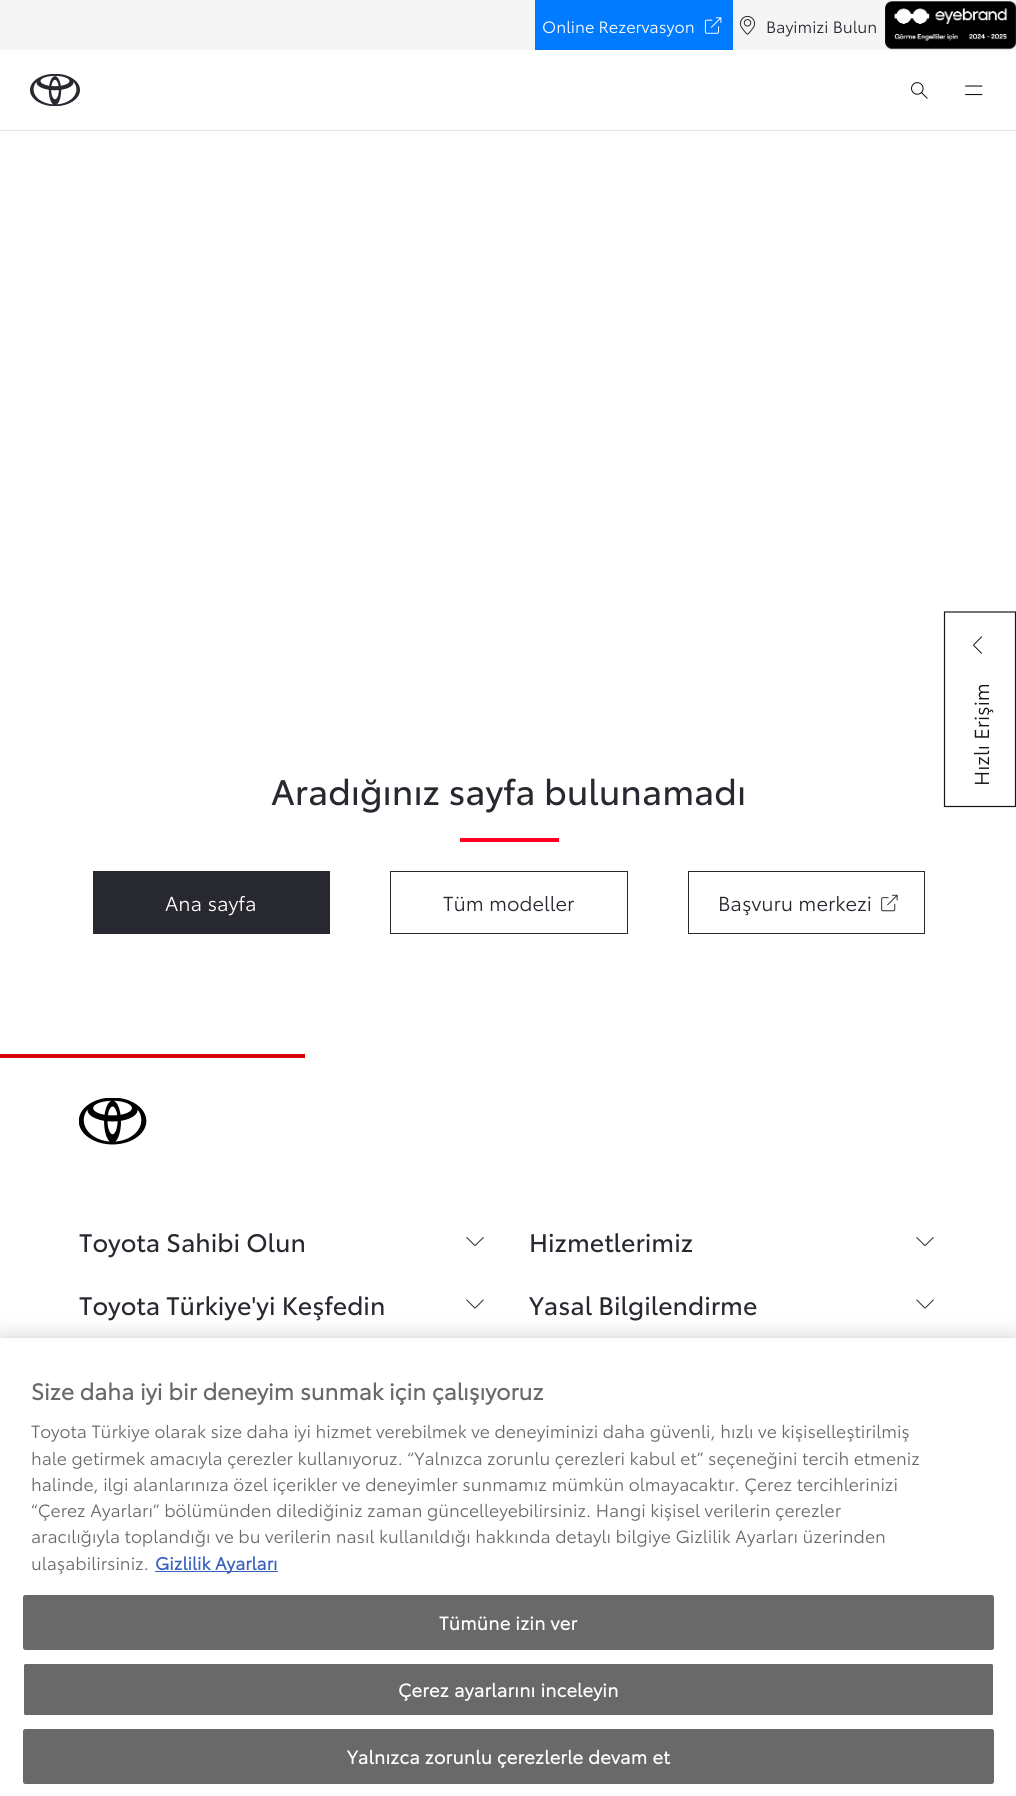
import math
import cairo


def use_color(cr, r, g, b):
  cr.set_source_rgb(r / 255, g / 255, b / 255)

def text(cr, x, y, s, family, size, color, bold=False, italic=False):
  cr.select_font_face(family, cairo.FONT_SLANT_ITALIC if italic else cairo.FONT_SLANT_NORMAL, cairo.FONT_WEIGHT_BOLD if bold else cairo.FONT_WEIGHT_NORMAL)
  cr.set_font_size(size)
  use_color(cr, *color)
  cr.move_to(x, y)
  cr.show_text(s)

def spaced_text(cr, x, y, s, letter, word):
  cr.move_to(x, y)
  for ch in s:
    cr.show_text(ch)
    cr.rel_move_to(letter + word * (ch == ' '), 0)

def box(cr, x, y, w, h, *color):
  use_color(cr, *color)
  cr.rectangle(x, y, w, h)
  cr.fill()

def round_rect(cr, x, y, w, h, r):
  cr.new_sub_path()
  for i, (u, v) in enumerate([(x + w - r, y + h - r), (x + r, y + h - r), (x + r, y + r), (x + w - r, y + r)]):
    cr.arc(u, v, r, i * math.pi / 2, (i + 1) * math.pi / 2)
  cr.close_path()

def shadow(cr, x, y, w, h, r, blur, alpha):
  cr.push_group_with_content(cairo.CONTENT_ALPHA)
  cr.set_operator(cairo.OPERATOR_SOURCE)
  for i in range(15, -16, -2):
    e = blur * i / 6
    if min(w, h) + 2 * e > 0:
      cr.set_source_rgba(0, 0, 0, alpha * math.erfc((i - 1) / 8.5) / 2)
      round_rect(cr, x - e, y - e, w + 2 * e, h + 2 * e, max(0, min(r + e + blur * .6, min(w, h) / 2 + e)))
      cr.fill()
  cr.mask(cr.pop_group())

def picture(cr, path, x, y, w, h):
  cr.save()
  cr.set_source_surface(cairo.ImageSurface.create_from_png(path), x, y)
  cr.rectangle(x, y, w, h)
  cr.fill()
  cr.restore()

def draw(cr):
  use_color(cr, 255, 255, 255)
  cr.paint()
  box(cr, 0, 0, 1016, 50, 245, 245, 245)
  box(cr, 535, 0, 198, 50, 0, 123, 255)
  picture(cr, "img_01.png", 704, 17, 18, 17)
  picture(cr, "img_02.png", 740, 15, 15, 20)
  picture(cr, "img_03.png", 885, 1, 131, 49)
  picture(cr, "img_04.png", 30, 74, 50, 32)
  picture(cr, "img_05.png", 911, 82, 17, 17)
  picture(cr, "img_06.png", 965, 85, 18, 11)
  box(cr, 0, 130, 1016, 1, 228, 228, 228)
  cr.new_path()
  cr.move_to(944.5, 806.5)
  cr.line_to(944.5, 612)
  cr.line_to(1015.5, 612)
  cr.line_to(1015.5, 806.5)
  cr.close_path()
  use_color(cr, 21, 21, 27)
  cr.set_line_width(1.2)
  cr.stroke()
  picture(cr, "img_07.png", 973, 636, 10, 18)
  box(cr, 460, 838, 99, 4, 255, 0, 34)
  box(cr, 93, 871, 237, 63, 40, 40, 48)
  cr.rectangle(390.5, 871.5, 237, 62)
  cr.set_line_width(1)
  cr.stroke()
  cr.rectangle(688.5, 871.5, 236, 62)
  cr.stroke()
  picture(cr, "img_08.png", 881, 894, 17, 18)
  box(cr, 0, 1054, 305, 4, 212, 6, 5)
  picture(cr, "img_09.png", 79, 1098, 68, 47)
  picture(cr, "img_10.png", 466, 1237, 18, 9)
  picture(cr, "img_10.png", 916, 1237, 18, 9)
  picture(cr, "img_11.png", 466, 1299, 18, 10)
  picture(cr, "img_11.png", 916, 1299, 18, 10)
  use_color(cr, 0, 0, 0)
  shadow(cr, 0, 1338, 1016, 458, 0, 11, 0.2)
  box(cr, 0, 1338, 1016, 458, 255, 255, 255)
  box(cr, 155, 1571, 123, 1, 56, 96, 190)
  use_color(cr, 105, 105, 105)
  round_rect(cr, 23.5, 1595.5, 970, 54, 2)
  cr.fill_preserve()
  cr.stroke()
  round_rect(cr, 23.5, 1663.5, 970, 52, 2)
  cr.fill_preserve()
  use_color(cr, 255, 255, 255)
  cr.stroke()
  use_color(cr, 105, 105, 105)
  round_rect(cr, 23.5, 1729.5, 970, 54, 2)
  cr.fill_preserve()
  cr.stroke()
  text(cr, 542, 33, "Online Rezervasyon", "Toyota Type", 16.25, (255, 255, 255))
  text(cr, 766, 33, "Bayimizi Bulun", "Toyota Type", 16.25, (40, 40, 48))
  cr.save()
  cr.translate(989, 786)
  cr.rotate(-90 * math.pi / 180)
  text(cr, 0, 0, "Hızlı Erişim", "Toyota Type", 20, (21, 21, 27))
  cr.restore()
  text(cr, 271, 805, "Aradığınız sayfa bulunamadı", "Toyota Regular", 35, (40, 40, 48))
  text(cr, 165, 911, "Ana sayfa", "Toyota Type", 20, (255, 255, 255))
  text(cr, 443, 911, "Tüm modeller", "Toyota Type", 20, (40, 40, 48))
  text(cr, 718, 911, "Başvuru merkezi", "Toyota Type", 20, (40, 40, 48))
  text(cr, 79, 1252, "Toyota Sahibi Olun", "Toyota Regular", 25, (40, 40, 48))
  text(cr, 529, 1252, "Hizmetlerimiz", "Toyota Regular", 25, (40, 40, 48))
  text(cr, 79, 1315, "Toyota Türkiye'yi Keşfedin", "Toyota Regular", 25, (40, 40, 48))
  text(cr, 529, 1315, "Yasal Bilgilendirme", "Toyota Regular", 25, (40, 40, 48))
  text(cr, 31, 1400, "Size daha iyi bir deneyim sunmak için çalışıyoruz", "Toyota Type", 22.5, (105, 105, 105), bold=True)
  text(cr, 31, 1438, "Toyota Türkiye olarak size daha iyi hizmet verebilmek ve deneyiminizi daha güvenli, hızlı ve kişiselleştirilmiş", "Toyota Type", 17.5, (105, 105, 105))
  text(cr, 31, 1465, "hale getirmek amacıyla çerezler kullanıyoruz. “Yalnızca zorunlu çerezleri kabul et” seçeneğini tercih etmeniz", "Toyota Type", 17.5, (105, 105, 105))
  text(cr, 31, 1491, "halinde, ilgi alanlarınıza özel içerikler ve deneyimler sunmamız mümkün olmayacaktır. Çerez tercihlerinizi", "Toyota Type", 17.5, (105, 105, 105))
  text(cr, 31, 1517, "“Çerez Ayarları” bölümünden dilediğiniz zaman güncelleyebilirsiniz. Hangi kişisel verilerin çerezler", "Toyota Type", 17.5, (105, 105, 105))
  text(cr, 31, 1543, "aracılığıyla toplandığı ve bu verilerin nasıl kullanıldığı hakkında detaylı bilgiye Gizlilik Ayarları üzerinden", "Toyota Type", 17.5, (105, 105, 105))
  text(cr, 31, 1570, "ulaşabilirsiniz.", "Toyota Type", 17.5, (105, 105, 105))
  text(cr, 155, 1570, "Gizlilik Ayarları", "Toyota Type", 17.5, (56, 96, 190), bold=True)
  cr.set_font_size(18.25)
  use_color(cr, 255, 255, 255)
  spaced_text(cr, 439, 1630, "Tümüne izin ver", 0.2, 0)
  spaced_text(cr, 398, 1697, "Çerez ayarlarını inceleyin", 0.2, 0)
  spaced_text(cr, 347, 1764, "Yalnızca zorunlu çerezlerle devam et", 0.2, 0)


surface = cairo.ImageSurface(cairo.FORMAT_RGB24, 1016, 1796)
cr = cairo.Context(surface)
options = cairo.FontOptions()
options.set_hint_metrics(cairo.HINT_METRICS_OFF)
options.set_hint_style(cairo.HINT_STYLE_NONE)
cr.set_font_options(options)
cr.set_miter_limit(4)
draw(cr)
surface.write_to_png("out.png")
